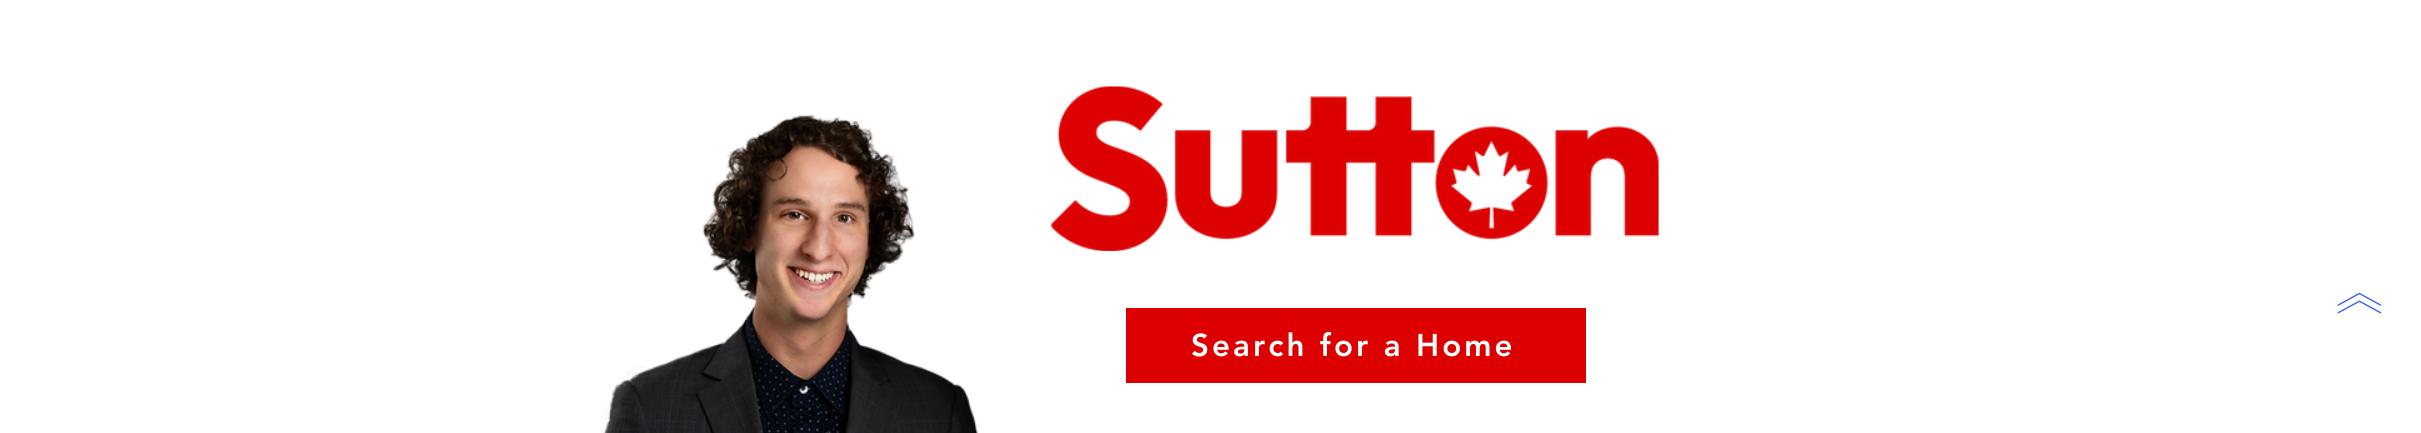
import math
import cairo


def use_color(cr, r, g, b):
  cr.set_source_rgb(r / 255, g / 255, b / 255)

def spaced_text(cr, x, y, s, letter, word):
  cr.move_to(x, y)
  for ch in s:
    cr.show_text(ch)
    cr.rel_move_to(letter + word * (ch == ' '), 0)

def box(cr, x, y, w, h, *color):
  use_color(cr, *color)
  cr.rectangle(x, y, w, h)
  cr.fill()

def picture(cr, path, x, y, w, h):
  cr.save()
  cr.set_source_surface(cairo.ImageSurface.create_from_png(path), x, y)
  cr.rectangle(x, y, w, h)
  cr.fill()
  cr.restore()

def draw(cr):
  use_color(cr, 255, 255, 255)
  cr.paint()
  picture(cr, "img_01.png", 2337, 292, 45, 22)
  picture(cr, "img_02.png", 603, 114, 375, 319)
  picture(cr, "img_03.png", 1051, 86, 608, 166)
  box(cr, 1126, 308, 460, 75, 221, 0, 0)
  cr.select_font_face("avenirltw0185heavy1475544 Black")
  cr.set_font_size(31.25)
  use_color(cr, 255, 255, 255)
  spaced_text(cr, 1191, 356, "Search for a Home", 3.1, 0)


surface = cairo.ImageSurface(cairo.FORMAT_RGB24, 2421, 433)
cr = cairo.Context(surface)
options = cairo.FontOptions()
options.set_hint_metrics(cairo.HINT_METRICS_OFF)
options.set_hint_style(cairo.HINT_STYLE_NONE)
cr.set_font_options(options)
cr.set_miter_limit(4)
draw(cr)
surface.write_to_png("out.png")
